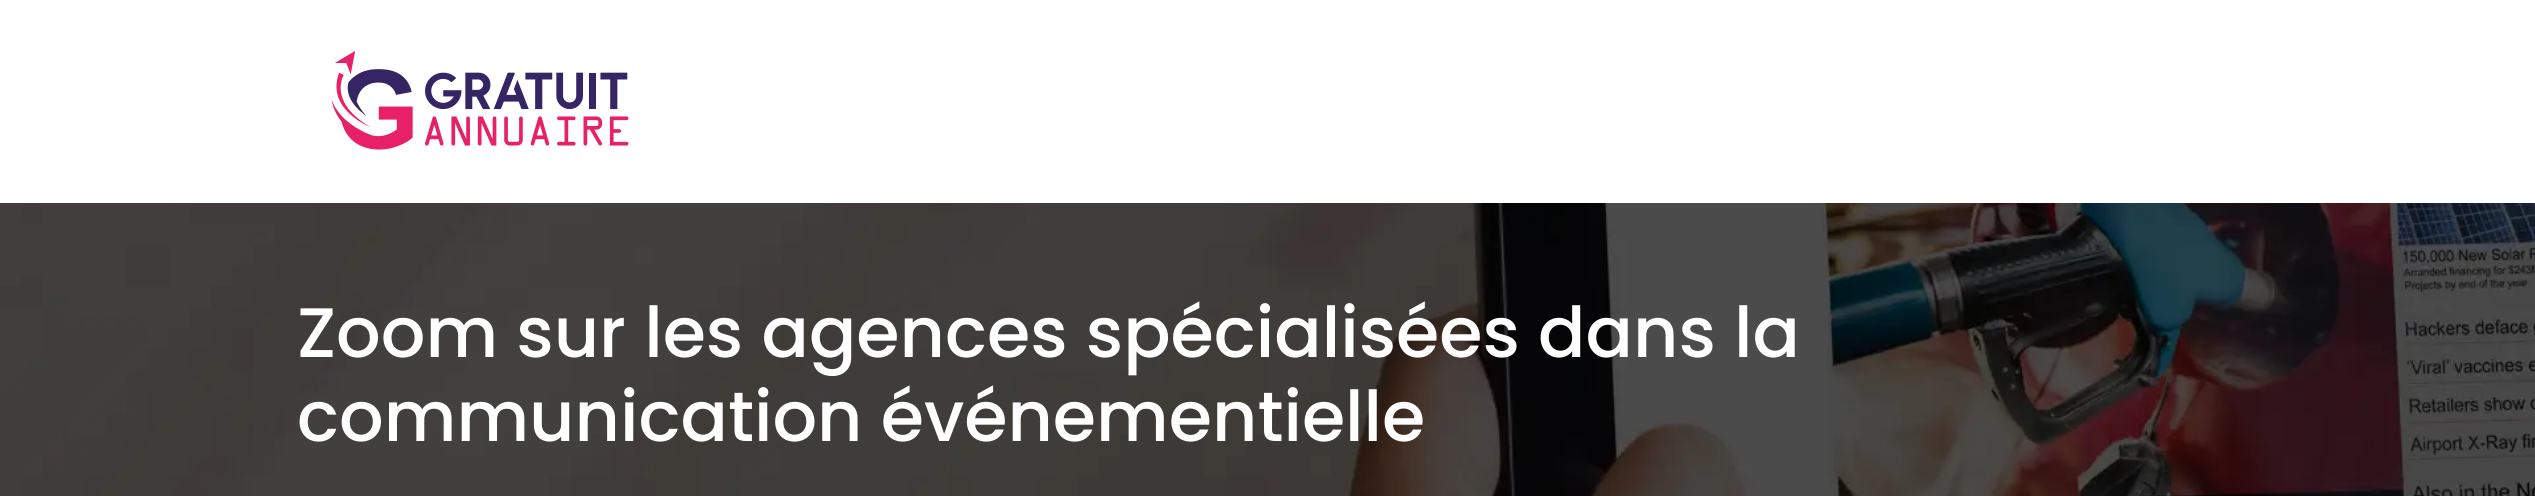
import math
import cairo


def use_color(cr, r, g, b):
  cr.set_source_rgb(r / 255, g / 255, b / 255)

def text(cr, x, y, s, family, size, color, bold=False, italic=False):
  cr.select_font_face(family, cairo.FONT_SLANT_ITALIC if italic else cairo.FONT_SLANT_NORMAL, cairo.FONT_WEIGHT_BOLD if bold else cairo.FONT_WEIGHT_NORMAL)
  cr.set_font_size(size)
  use_color(cr, *color)
  cr.move_to(x, y)
  cr.show_text(s)

def picture(cr, path, x, y, w, h):
  cr.save()
  cr.set_source_surface(cairo.ImageSurface.create_from_png(path), x, y)
  cr.rectangle(x, y, w, h)
  cr.fill()
  cr.restore()

def draw(cr):
  use_color(cr, 255, 255, 255)
  cr.paint()
  picture(cr, "img_01.png", 331, 51, 298, 99)
  picture(cr, "img_02.png", 0, 203, 2535, 293)
  text(cr, 297, 357, "Zoom sur les agences spécialisées dans la", "Poppins Medium", 70, (255, 255, 255))
  text(cr, 297, 441, "communication événementielle", "Poppins Medium", 70, (255, 255, 255))


surface = cairo.ImageSurface(cairo.FORMAT_RGB24, 2535, 496)
cr = cairo.Context(surface)
options = cairo.FontOptions()
options.set_hint_metrics(cairo.HINT_METRICS_OFF)
options.set_hint_style(cairo.HINT_STYLE_NONE)
cr.set_font_options(options)
cr.set_miter_limit(4)
draw(cr)
surface.write_to_png("out.png")
